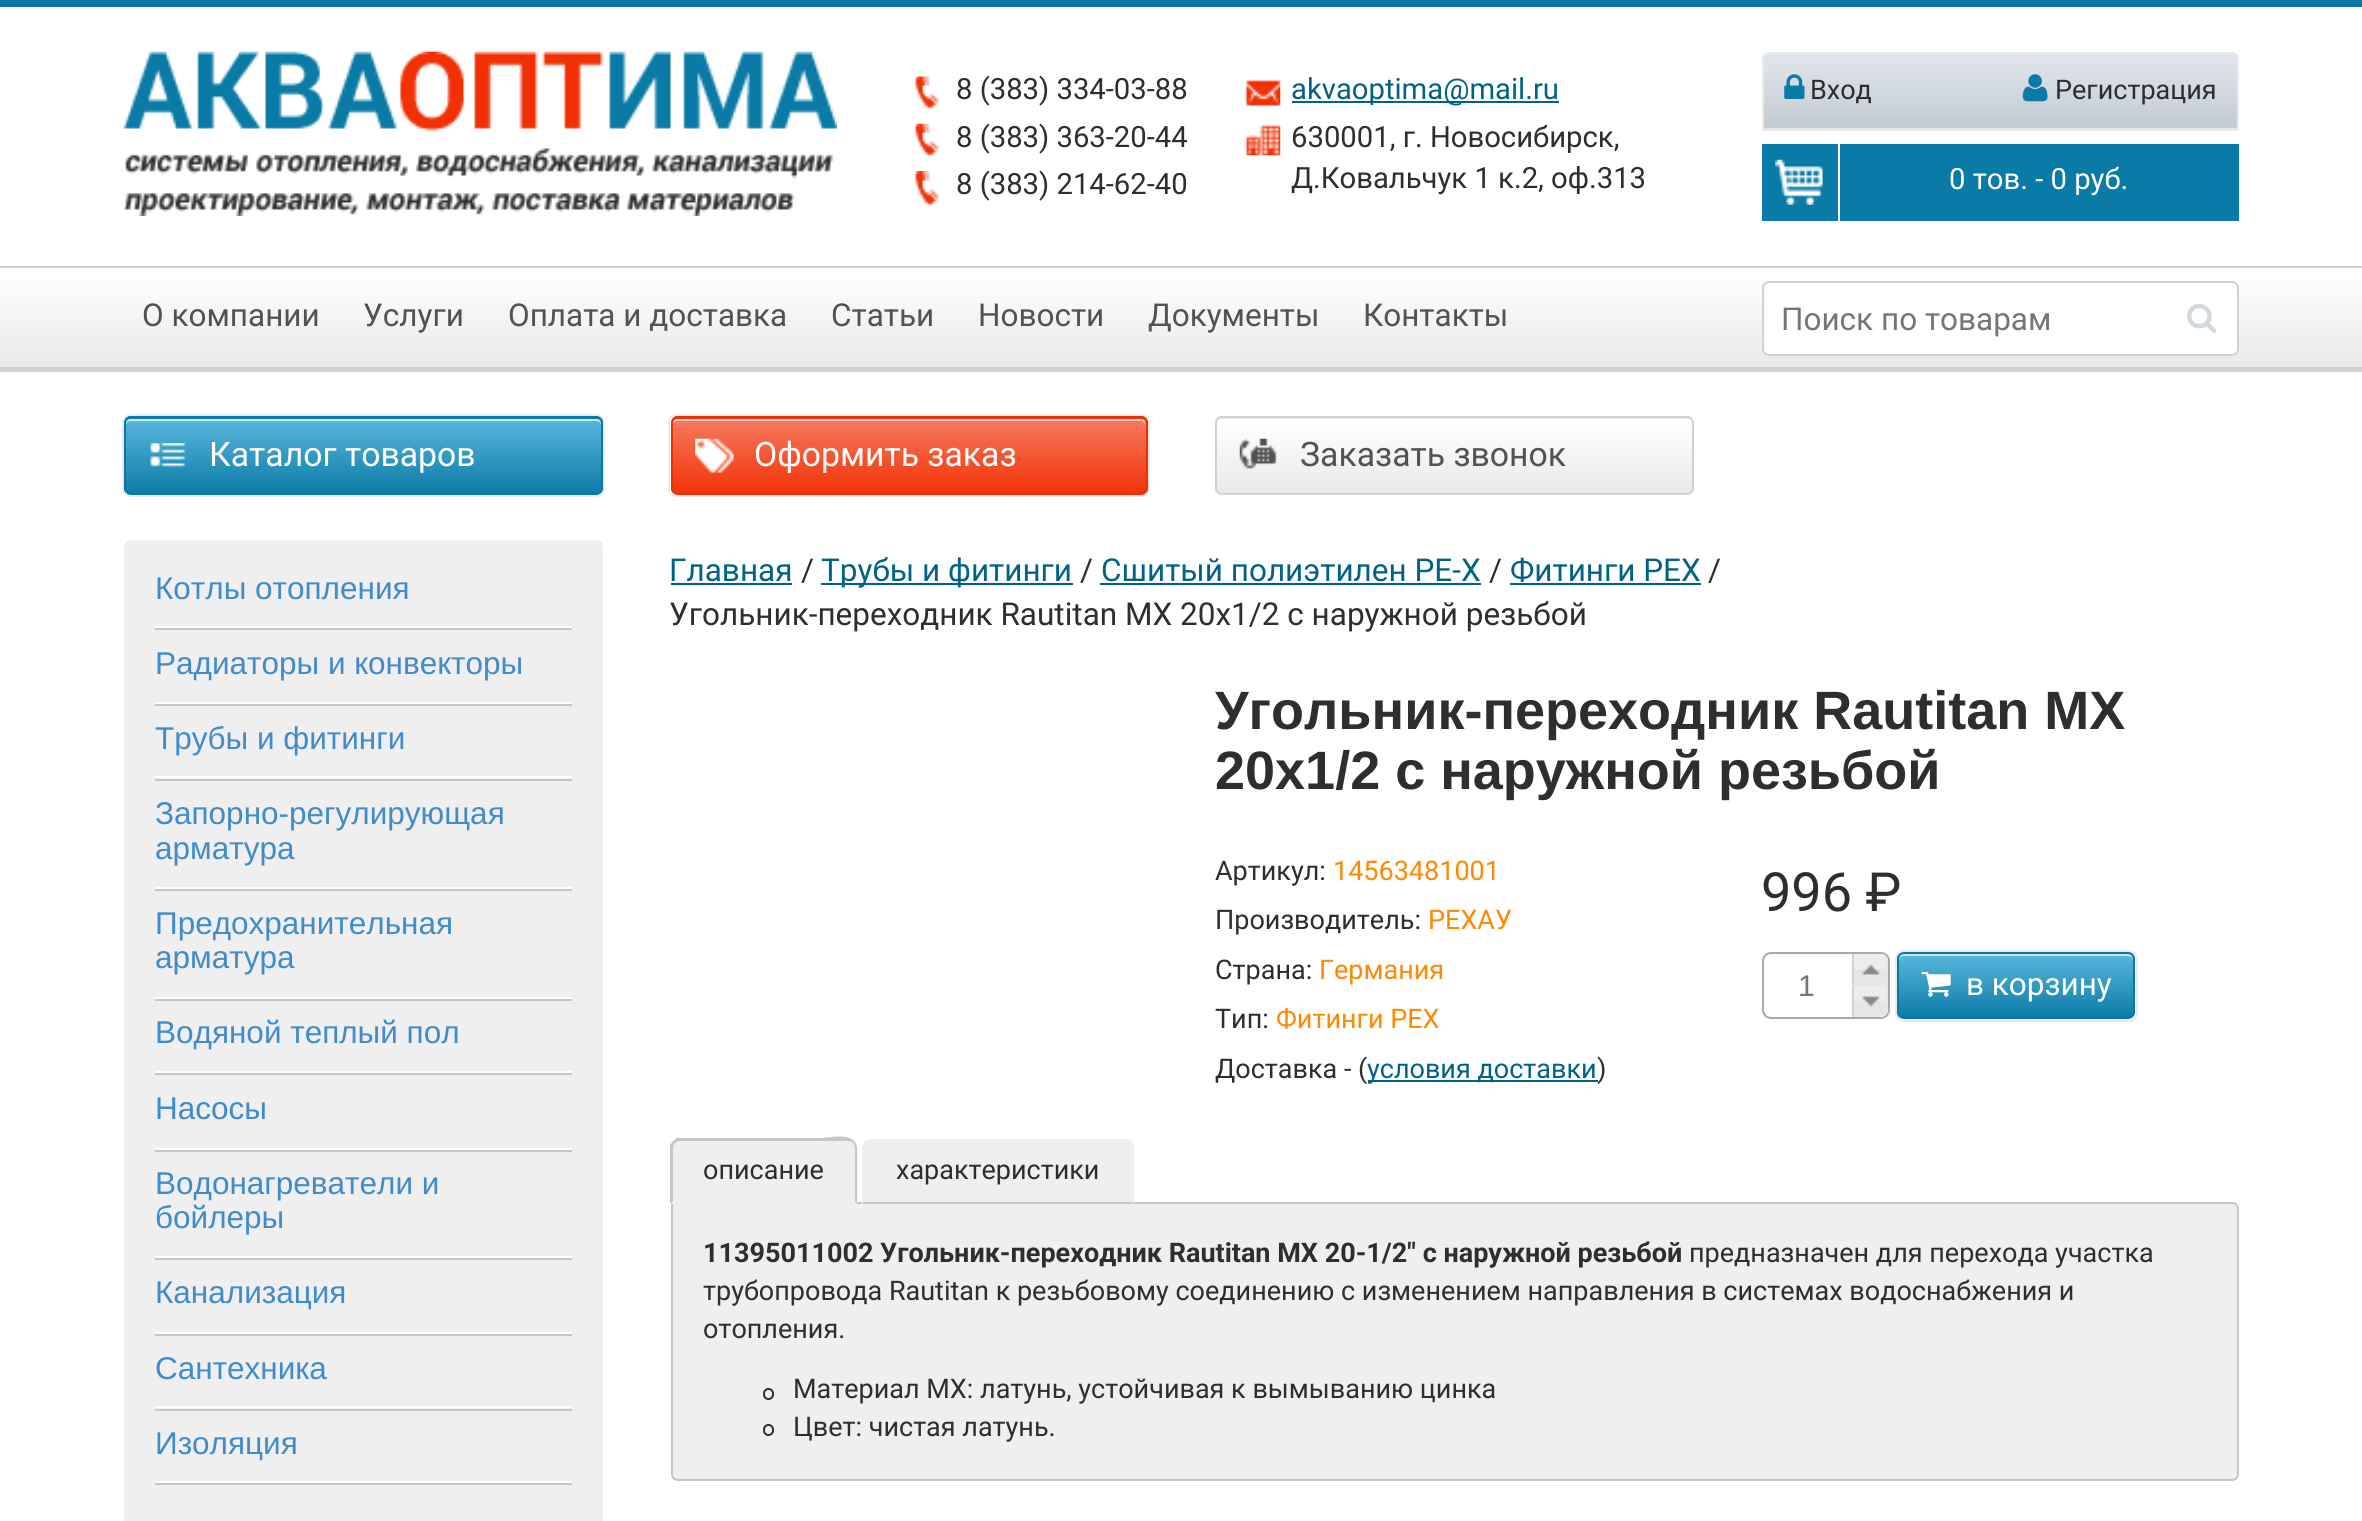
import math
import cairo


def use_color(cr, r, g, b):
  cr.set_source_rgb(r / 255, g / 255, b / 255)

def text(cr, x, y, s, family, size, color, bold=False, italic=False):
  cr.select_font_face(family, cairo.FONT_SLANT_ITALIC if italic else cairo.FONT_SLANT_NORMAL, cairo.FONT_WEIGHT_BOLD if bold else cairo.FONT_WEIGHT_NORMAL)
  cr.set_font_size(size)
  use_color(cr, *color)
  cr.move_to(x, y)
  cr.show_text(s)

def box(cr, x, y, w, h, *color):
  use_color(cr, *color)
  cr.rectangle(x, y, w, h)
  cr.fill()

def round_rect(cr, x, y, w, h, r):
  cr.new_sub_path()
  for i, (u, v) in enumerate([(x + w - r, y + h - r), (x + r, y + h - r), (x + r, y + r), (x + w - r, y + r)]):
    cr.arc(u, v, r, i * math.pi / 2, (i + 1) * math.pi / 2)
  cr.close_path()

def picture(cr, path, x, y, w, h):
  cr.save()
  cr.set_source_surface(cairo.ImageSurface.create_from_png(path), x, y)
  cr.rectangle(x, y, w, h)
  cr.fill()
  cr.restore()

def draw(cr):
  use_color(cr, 255, 255, 255)
  cr.paint()
  box(cr, 0, 0, 2362, 7, 10, 122, 166)
  picture(cr, "img_01.png", 123, 51, 714, 165)
  picture(cr, "img_02.png", 915, 76, 24, 33)
  picture(cr, "img_03.png", 915, 123, 24, 33)
  picture(cr, "img_04.png", 915, 171, 24, 34)
  picture(cr, "img_05.png", 1246, 80, 35, 26)
  box(cr, 1292, 101, 267, 2, 1, 98, 136)
  picture(cr, "img_06.png", 1246, 125, 35, 31)
  cr.save()
  cr.new_path()
  cr.move_to(1769, 52)
  cr.line_to(2232, 52)
  cr.curve_to(2236, 52, 2239, 55, 2239, 59)
  cr.line_to(2239, 131)
  cr.line_to(1762, 131)
  cr.line_to(1762, 59)
  cr.curve_to(1762, 55, 1765, 52, 1769, 52)
  cr.close_path()
  cr.clip()
  gradient = cairo.LinearGradient(2000, 54, 2000, 128)
  gradient.add_color_stop_rgba(0, 0.882, 0.902, 0.925, 1)
  gradient.add_color_stop_rgba(1, 0.761, 0.796, 0.824, 1)
  cr.set_source(gradient)
  cr.rectangle(1762, 54, 477, 74)
  cr.fill()
  cr.restore()
  gradient = cairo.LinearGradient(2000, 128, 2000, 203)
  gradient.add_color_stop_rgba(0, 0.882, 0.902, 0.925, 1)
  gradient.add_color_stop_rgba(1, 0.761, 0.796, 0.824, 1)
  cr.set_source(gradient)
  cr.rectangle(1762, 128, 477, 1)
  cr.fill()
  cr.new_path()
  cr.move_to(1769, 53)
  cr.line_to(2232, 53)
  cr.curve_to(2235.5, 53, 2238, 55.5, 2238, 59)
  cr.line_to(2238, 130)
  cr.line_to(1763, 130)
  cr.line_to(1763, 59)
  cr.curve_to(1763, 55.5, 1765.5, 53, 1769, 53)
  cr.close_path()
  use_color(cr, 234, 234, 234)
  cr.stroke()
  picture(cr, "img_07.png", 1784, 74, 21, 25)
  picture(cr, "img_08.png", 2022, 74, 26, 28)
  box(cr, 1762, 144, 477, 77, 10, 122, 166)
  picture(cr, "img_09.png", 1775, 159, 48, 46)
  box(cr, 1838, 144, 2, 77, 255, 255, 255)
  gradient = cairo.LinearGradient(1181, 268, 1181, 367)
  gradient.add_color_stop_rgba(0.01, 1, 1, 1, 1)
  gradient.add_color_stop_rgba(1, 0.914, 0.914, 0.914, 1)
  cr.set_source(gradient)
  cr.rectangle(0, 280, 2362, 87)
  cr.fill()
  box(cr, 0, 266, 2362, 2, 209, 209, 209)
  box(cr, 0, 367, 2362, 5, 209, 209, 209)
  use_color(cr, 255, 255, 255)
  round_rect(cr, 1763, 282, 475, 73, 6)
  cr.fill_preserve()
  use_color(cr, 209, 209, 209)
  cr.stroke()
  picture(cr, "img_10.png", 2187, 303, 30, 30)
  round_rect(cr, 123, 415, 481, 81, 8)
  use_color(cr, 234, 234, 234)
  cr.stroke()
  cr.save()
  round_rect(cr, 124, 416, 479, 79, 7)
  cr.clip()
  gradient = cairo.LinearGradient(363, 344, 363, 419)
  gradient.add_color_stop_rgba(0, 0.349, 0.718, 0.863, 1)
  gradient.add_color_stop_rgba(1, 0.051, 0.486, 0.659, 1)
  cr.set_source(gradient)
  cr.rectangle(124, 416, 479, 3)
  cr.fill()
  gradient = cairo.LinearGradient(363, 419, 363, 493)
  gradient.add_color_stop_rgba(0, 0.349, 0.718, 0.863, 1)
  gradient.add_color_stop_rgba(1, 0.051, 0.486, 0.659, 1)
  cr.set_source(gradient)
  cr.rectangle(124, 419, 479, 74)
  cr.fill()
  cr.restore()
  use_color(cr, 199, 231, 243)
  cr.new_path()
  cr.move_to(130, 421)
  cr.line_to(596, 421)
  cr.curve_to(599, 421, 601, 423, 601, 425)
  cr.line_to(601, 424)
  cr.curve_to(601, 421, 599, 419, 596, 419)
  cr.line_to(131, 419)
  cr.curve_to(128, 419, 126, 421, 126, 424)
  cr.line_to(126, 425)
  cr.curve_to(126, 423, 128, 421, 130, 421)
  cr.close_path()
  cr.fill()
  round_rect(cr, 125, 417, 477, 77, 6)
  use_color(cr, 10, 120, 163)
  cr.stroke()
  picture(cr, "img_11.png", 150, 443, 36, 24)
  round_rect(cr, 669, 415, 480, 81, 8)
  use_color(cr, 234, 234, 234)
  cr.stroke()
  cr.save()
  round_rect(cr, 671, 416, 477, 79, 7)
  cr.clip()
  gradient = cairo.LinearGradient(909, 344, 909, 419)
  gradient.add_color_stop_rgba(0.01, 0.969, 0.475, 0.365, 1)
  gradient.add_color_stop_rgba(1, 0.949, 0.2, 0.031, 1)
  cr.set_source(gradient)
  cr.rectangle(671, 416, 477, 3)
  cr.fill()
  gradient = cairo.LinearGradient(909, 419, 909, 493)
  gradient.add_color_stop_rgba(0.01, 0.969, 0.475, 0.365, 1)
  gradient.add_color_stop_rgba(1, 0.949, 0.2, 0.031, 1)
  cr.set_source(gradient)
  cr.rectangle(671, 419, 477, 74)
  cr.fill()
  cr.restore()
  use_color(cr, 252, 210, 200)
  cr.new_path()
  cr.move_to(677, 421)
  cr.line_to(1141, 421)
  cr.curve_to(1143, 421, 1145, 423, 1145, 425)
  cr.line_to(1145, 424)
  cr.curve_to(1145, 421, 1143, 419, 1140, 419)
  cr.line_to(678, 419)
  cr.curve_to(675, 419, 673, 421, 673, 424)
  cr.line_to(673, 425)
  cr.curve_to(673, 423, 675, 421, 677, 421)
  cr.close_path()
  cr.fill()
  round_rect(cr, 672, 417, 475, 77, 6)
  use_color(cr, 237, 47, 5)
  cr.stroke()
  picture(cr, "img_12.png", 695, 438, 39, 36)
  cr.save()
  round_rect(cr, 1215, 416, 479, 79, 7)
  cr.clip()
  gradient = cairo.LinearGradient(1455, 344, 1455, 419)
  gradient.add_color_stop_rgba(0.02, 1, 1, 1, 1)
  gradient.add_color_stop_rgba(1, 0.914, 0.914, 0.914, 1)
  cr.set_source(gradient)
  cr.rectangle(1215, 416, 479, 3)
  cr.fill()
  gradient = cairo.LinearGradient(1455, 419, 1455, 493)
  gradient.add_color_stop_rgba(0.02, 1, 1, 1, 1)
  gradient.add_color_stop_rgba(1, 0.914, 0.914, 0.914, 1)
  cr.set_source(gradient)
  cr.rectangle(1215, 419, 479, 74)
  cr.fill()
  cr.restore()
  round_rect(cr, 1216, 417, 477, 77, 6)
  use_color(cr, 209, 209, 209)
  cr.stroke()
  picture(cr, "img_13.png", 1239, 438, 38, 31)
  use_color(cr, 239, 239, 239)
  round_rect(cr, 124, 540, 479, 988, 7)
  cr.fill()
  use_color(cr, 255, 255, 255)
  cr.new_path()
  cr.move_to(155, 626)
  cr.line_to(155, 680)
  cr.line_to(155, 628)
  cr.line_to(572, 628)
  cr.line_to(572, 680)
  cr.line_to(572, 626)
  cr.close_path()
  cr.fill()
  box(cr, 155, 628, 417, 2, 199, 197, 197)
  use_color(cr, 255, 255, 255)
  cr.new_path()
  cr.move_to(155, 702)
  cr.line_to(155, 754)
  cr.line_to(155, 704)
  cr.line_to(572, 704)
  cr.line_to(572, 754)
  cr.line_to(572, 702)
  cr.close_path()
  cr.fill()
  box(cr, 155, 704, 417, 2, 199, 197, 197)
  use_color(cr, 255, 255, 255)
  cr.new_path()
  cr.move_to(155, 776)
  cr.line_to(155, 864)
  cr.line_to(155, 778)
  cr.line_to(572, 778)
  cr.line_to(572, 864)
  cr.line_to(572, 776)
  cr.close_path()
  cr.fill()
  box(cr, 155, 779, 417, 2, 199, 197, 197)
  use_color(cr, 255, 255, 255)
  cr.new_path()
  cr.move_to(155, 887)
  cr.line_to(155, 974)
  cr.line_to(155, 889)
  cr.line_to(572, 889)
  cr.line_to(572, 974)
  cr.line_to(572, 887)
  cr.close_path()
  cr.fill()
  box(cr, 155, 889, 417, 2, 199, 197, 197)
  use_color(cr, 255, 255, 255)
  cr.new_path()
  cr.move_to(155, 997)
  cr.line_to(155, 1049)
  cr.line_to(155, 999)
  cr.line_to(572, 999)
  cr.line_to(572, 1049)
  cr.line_to(572, 997)
  cr.close_path()
  cr.fill()
  box(cr, 155, 999, 417, 2, 199, 197, 197)
  use_color(cr, 255, 255, 255)
  cr.new_path()
  cr.move_to(155, 1071)
  cr.line_to(155, 1125)
  cr.line_to(155, 1073)
  cr.line_to(572, 1073)
  cr.line_to(572, 1125)
  cr.line_to(572, 1071)
  cr.close_path()
  cr.fill()
  box(cr, 155, 1073, 417, 2, 199, 197, 197)
  use_color(cr, 255, 255, 255)
  cr.new_path()
  cr.move_to(155, 1148)
  cr.line_to(155, 1233)
  cr.line_to(155, 1150)
  cr.line_to(572, 1150)
  cr.line_to(572, 1233)
  cr.line_to(572, 1148)
  cr.close_path()
  cr.fill()
  box(cr, 155, 1150, 417, 2, 199, 197, 197)
  use_color(cr, 255, 255, 255)
  cr.new_path()
  cr.move_to(155, 1256)
  cr.line_to(155, 1310)
  cr.line_to(155, 1258)
  cr.line_to(572, 1258)
  cr.line_to(572, 1310)
  cr.line_to(572, 1256)
  cr.close_path()
  cr.fill()
  box(cr, 155, 1258, 417, 2, 199, 197, 197)
  use_color(cr, 255, 255, 255)
  cr.new_path()
  cr.move_to(155, 1332)
  cr.line_to(155, 1384)
  cr.line_to(155, 1334)
  cr.line_to(572, 1334)
  cr.line_to(572, 1384)
  cr.line_to(572, 1332)
  cr.close_path()
  cr.fill()
  box(cr, 155, 1334, 417, 2, 199, 197, 197)
  use_color(cr, 255, 255, 255)
  cr.new_path()
  cr.move_to(155, 1406)
  cr.line_to(155, 1458)
  cr.line_to(155, 1408)
  cr.line_to(572, 1408)
  cr.line_to(572, 1458)
  cr.line_to(572, 1406)
  cr.close_path()
  cr.fill()
  box(cr, 155, 1409, 417, 2, 199, 197, 197)
  use_color(cr, 255, 255, 255)
  cr.new_path()
  cr.move_to(155, 1481)
  cr.line_to(155, 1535)
  cr.line_to(155, 1483)
  cr.line_to(572, 1483)
  cr.line_to(572, 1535)
  cr.line_to(572, 1481)
  cr.close_path()
  cr.fill()
  box(cr, 155, 1483, 417, 2, 199, 197, 197)
  box(cr, 671, 583, 121, 2, 1, 98, 136)
  box(cr, 821, 583, 252, 2, 1, 98, 136)
  box(cr, 1100, 583, 381, 2, 1, 98, 136)
  box(cr, 1510, 583, 191, 2, 1, 98, 136)
  box(cr, 1368, 1080, 230, 2, 1, 98, 136)
  round_rect(cr, 1763, 953, 126, 65, 8)
  use_color(cr, 170, 170, 170)
  cr.stroke()
  use_color(cr, 230, 230, 230)
  cr.new_path()
  cr.move_to(1852, 954)
  cr.line_to(1879, 954)
  cr.curve_to(1884, 954, 1888, 958, 1888, 963)
  cr.line_to(1888, 986)
  cr.line_to(1852, 986)
  cr.close_path()
  cr.fill()
  picture(cr, "img_14.png", 1854, 954, 33, 15)
  box(cr, 1852, 954, 2, 32, 211, 211, 211)
  picture(cr, "img_15.png", 1862, 964, 18, 11)
  use_color(cr, 230, 230, 230)
  cr.new_path()
  cr.move_to(1852, 986)
  cr.line_to(1888, 986)
  cr.line_to(1888, 1008)
  cr.curve_to(1888, 1013, 1884, 1017, 1879, 1017)
  cr.line_to(1852, 1017)
  cr.close_path()
  cr.fill()
  box(cr, 1852, 985, 35, 16, 237, 237, 237)
  box(cr, 1852, 986, 2, 31, 211, 211, 211)
  picture(cr, "img_16.png", 1862, 996, 18, 11)
  round_rect(cr, 1896, 951, 241, 70, 8)
  use_color(cr, 234, 234, 234)
  cr.stroke()
  cr.save()
  round_rect(cr, 1897, 952, 238, 67, 7)
  cr.clip()
  gradient = cairo.LinearGradient(2016, 954, 2016, 1017)
  gradient.add_color_stop_rgba(0, 0.349, 0.718, 0.863, 1)
  gradient.add_color_stop_rgba(1, 0.051, 0.486, 0.659, 1)
  cr.set_source(gradient)
  cr.rectangle(1897, 954, 238, 63)
  cr.fill()
  cr.restore()
  use_color(cr, 199, 231, 243)
  cr.new_path()
  cr.move_to(1904, 956)
  cr.line_to(2128, 956)
  cr.curve_to(2131, 956, 2133, 958, 2133, 961)
  cr.curve_to(2133, 958, 2133, 955, 2129, 954)
  cr.line_to(1903, 954)
  cr.curve_to(1899, 955, 1899, 958, 1899, 961)
  cr.curve_to(1899, 958, 1901, 956, 1904, 956)
  cr.close_path()
  cr.fill()
  round_rect(cr, 1898, 953, 236, 65, 6)
  use_color(cr, 10, 120, 163)
  cr.stroke()
  picture(cr, "img_17.png", 1921, 972, 30, 25)
  use_color(cr, 239, 239, 239)
  cr.new_path()
  cr.move_to(672, 1203)
  cr.line_to(2232, 1203)
  cr.curve_to(2235.5, 1203, 2238, 1205.5, 2238, 1209)
  cr.line_to(2238, 1474)
  cr.curve_to(2238, 1477.5, 2235.5, 1480, 2232, 1480)
  cr.line_to(678, 1480)
  cr.curve_to(674.5, 1480, 672, 1477.5, 672, 1474)
  cr.close_path()
  cr.fill_preserve()
  use_color(cr, 199, 197, 197)
  cr.stroke()
  use_color(cr, 239, 239, 239)
  cr.new_path()
  cr.move_to(680, 1139)
  cr.line_to(848, 1139)
  cr.curve_to(853, 1139, 857, 1143, 857, 1148)
  cr.line_to(857, 1204)
  cr.line_to(671, 1204)
  cr.line_to(671, 1148)
  cr.curve_to(671, 1143, 675, 1139, 680, 1139)
  cr.close_path()
  cr.fill()
  use_color(cr, 199, 197, 197)
  cr.new_path()
  cr.move_to(680, 1141)
  cr.curve_to(678, 1141, 676, 1142, 675, 1143)
  cr.line_to(673, 1141)
  cr.line_to(677, 1138)
  cr.line_to(822, 1138)
  cr.curve_to(826, 1138, 847, 1133, 854, 1141)
  cr.line_to(853, 1143)
  cr.curve_to(852, 1142, 850, 1141, 848, 1141)
  cr.close_path()
  cr.fill()
  cr.new_path()
  cr.move_to(854, 1141)
  cr.curve_to(856, 1143, 857, 1146, 857, 1148)
  cr.line_to(857, 1204)
  cr.line_to(855, 1202)
  cr.line_to(855, 1148)
  cr.curve_to(855, 1146, 854, 1144, 853, 1143)
  cr.close_path()
  cr.fill()
  use_color(cr, 239, 239, 239)
  cr.new_path()
  cr.move_to(857, 1204)
  cr.line_to(670, 1204)
  cr.line_to(673, 1201)
  cr.line_to(673, 1202)
  cr.line_to(855, 1202)
  cr.close_path()
  cr.fill()
  use_color(cr, 199, 197, 197)
  cr.new_path()
  cr.move_to(670, 1204)
  cr.line_to(670, 1145)
  cr.line_to(673, 1141)
  cr.line_to(675, 1143)
  cr.curve_to(674, 1144, 673, 1146, 673, 1148)
  cr.line_to(673, 1201)
  cr.close_path()
  cr.fill()
  use_color(cr, 239, 239, 239)
  cr.new_path()
  cr.move_to(871, 1139)
  cr.line_to(1125, 1139)
  cr.curve_to(1130, 1139, 1134, 1143, 1134, 1148)
  cr.line_to(1134, 1204)
  cr.line_to(862, 1204)
  cr.line_to(862, 1148)
  cr.curve_to(862, 1143, 866, 1139, 871, 1139)
  cr.close_path()
  cr.fill()
  use_color(cr, 199, 197, 197)
  cr.new_path()
  cr.move_to(1134, 1204)
  cr.line_to(862, 1204)
  cr.line_to(864, 1202)
  cr.line_to(1132, 1202)
  cr.close_path()
  cr.fill()
  round_rect(cr, 764, 1389, 9, 10, 4.5)
  use_color(cr, 46, 46, 46)
  cr.stroke()
  round_rect(cr, 764, 1425, 9, 10, 4.5)
  cr.stroke()
  text(cr, 956, 99, "8 (383) 334-03-88", "Roboto", 29.25, (46, 46, 46))
  text(cr, 956, 147, "8 (383) 363-20-44", "Roboto", 29.25, (46, 46, 46))
  text(cr, 956, 194, "8 (383) 214-62-40", "Roboto", 29.25, (46, 46, 46))
  text(cr, 1291, 99, "akvaoptima@mail.ru", "Roboto", 29.25, (1, 98, 136))
  text(cr, 1291, 147, "630001, г. Новосибирск,", "Roboto", 29.25, (46, 46, 46))
  text(cr, 1291, 188, "Д.Ковальчук 1 к.2, оф.313", "Roboto", 29.25, (46, 46, 46))
  text(cr, 1810, 99, "Вход", "Roboto", 27, (46, 46, 46))
  text(cr, 2055, 99, "Регистрация", "Roboto", 27, (46, 46, 46))
  text(cr, 1949, 189, "0 тов. - 0 руб.", "Roboto", 29.25, (255, 255, 255))
  text(cr, 142, 326, "О компании", "Roboto", 31.5, (82, 82, 82))
  text(cr, 363, 326, "Услуги", "Roboto", 31.5, (82, 82, 82))
  text(cr, 508, 326, "Оплата и доставка", "Roboto", 31.5, (82, 82, 82))
  text(cr, 831, 326, "Статьи", "Roboto", 31.5, (82, 82, 82))
  text(cr, 978, 326, "Новости", "Roboto", 31.5, (82, 82, 82))
  text(cr, 1148, 326, "Документы", "Roboto", 31.5, (82, 82, 82))
  text(cr, 1363, 326, "Контакты", "Roboto", 31.5, (82, 82, 82))
  text(cr, 1781, 330, "Поиск по товарам", "Roboto", 31.5, (117, 117, 117))
  text(cr, 209, 466, "Каталог товаров", "Roboto", 33.75, (255, 255, 255))
  text(cr, 754, 466, "Оформить заказ", "Roboto", 33.75, (255, 255, 255))
  text(cr, 1300, 466, "Заказать звонок", "Roboto", 33.75, (82, 82, 82))
  text(cr, 155, 599, "Котлы отопления", "Liberation Sans", 31.5, (66, 139, 202))
  text(cr, 155, 674, "Радиаторы и конвекторы", "Liberation Sans", 31.5, (66, 139, 202))
  text(cr, 155, 749, "Трубы и фитинги", "Liberation Sans", 31.5, (66, 139, 202))
  text(cr, 155, 824, "Запорно-регулирующая", "Liberation Sans", 31.5, (66, 139, 202))
  text(cr, 155, 859, "арматура", "Liberation Sans", 31.5, (66, 139, 202))
  text(cr, 155, 934, "Предохранительная", "Liberation Sans", 31.5, (66, 139, 202))
  text(cr, 155, 968, "арматура", "Liberation Sans", 31.5, (66, 139, 202))
  text(cr, 155, 1043, "Водяной теплый пол", "Liberation Sans", 31.5, (66, 139, 202))
  text(cr, 155, 1119, "Насосы", "Liberation Sans", 31.5, (66, 139, 202))
  text(cr, 155, 1194, "Водонагреватели и", "Liberation Sans", 31.5, (66, 139, 202))
  text(cr, 155, 1228, "бойлеры", "Liberation Sans", 31.5, (66, 139, 202))
  text(cr, 155, 1303, "Канализация", "Liberation Sans", 31.5, (66, 139, 202))
  text(cr, 155, 1379, "Сантехника", "Liberation Sans", 31.5, (66, 139, 202))
  text(cr, 155, 1454, "Изоляция", "Liberation Sans", 31.5, (66, 139, 202))
  text(cr, 669, 581, "Главная", "Roboto", 31.5, (1, 98, 136))
  text(cr, 801, 581, "/", "Roboto", 31.5, (46, 46, 46))
  text(cr, 821, 581, "Трубы и фитинги", "Roboto", 31.5, (1, 98, 136))
  text(cr, 1080, 581, "/", "Roboto", 31.5, (46, 46, 46))
  text(cr, 1101, 581, "Сшитый полиэтилен РЕ-Х", "Roboto", 31.5, (1, 98, 136))
  text(cr, 1489, 581, "/", "Roboto", 31.5, (46, 46, 46))
  text(cr, 1510, 581, "Фитинги PEX", "Roboto", 31.5, (1, 98, 136))
  text(cr, 1708, 581, "/", "Roboto", 31.5, (46, 46, 46))
  text(cr, 669, 625, "Угольник-переходник Rautitan MX 20х1/2 с наружной резьбой", "Roboto", 31.5, (46, 46, 46))
  text(cr, 1215, 729, "Угольник-переходник Rautitan MX", "Liberation Sans", 54, (46, 46, 46), bold=True)
  text(cr, 1215, 789, "20х1/2 с наружной резьбой", "Liberation Sans", 54, (46, 46, 46), bold=True)
  text(cr, 1215, 880, "Артикул:", "Roboto", 27, (46, 46, 46))
  text(cr, 1333, 880, "14563481001", "Roboto", 27, (255, 137, 0))
  text(cr, 1215, 929, "Производитель:", "Roboto", 27, (46, 46, 46))
  text(cr, 1428, 929, "РЕХАУ", "Roboto", 27, (255, 137, 0))
  text(cr, 1215, 979, "Страна:", "Roboto", 27, (46, 46, 46))
  text(cr, 1319, 979, "Германия", "Roboto", 27, (255, 137, 0))
  text(cr, 1215, 1028, "Тип:", "Roboto", 27, (46, 46, 46))
  text(cr, 1276, 1028, "Фитинги PEX", "Roboto", 27, (255, 137, 0))
  text(cr, 1215, 1078, "Доставка - (", "Roboto", 27, (46, 46, 46))
  text(cr, 1367, 1078, "условия доставки", "Roboto", 27, (1, 98, 136))
  text(cr, 1597, 1078, ")", "Roboto", 27, (46, 46, 46))
  text(cr, 1761, 911, "996 ₽", "Roboto", 54, (46, 46, 46))
  text(cr, 1798, 996, "1", "Liberation Sans", 30, (117, 117, 117))
  text(cr, 1966, 995, "в корзину", "Roboto", 31.5, (255, 255, 255))
  text(cr, 703, 1179, "описание", "Roboto", 27, (46, 46, 46))
  text(cr, 896, 1179, "характеристики", "Roboto", 27, (46, 46, 46))
  text(cr, 703, 1262, "11395011002 Угольник-переходник Rautitan MX 20-1/2\" с наружной резьбой", "Roboto", 27, (46, 46, 46), bold=True)
  text(cr, 1689, 1262, "предназначен для перехода участка", "Roboto", 27, (46, 46, 46))
  text(cr, 703, 1300, "трубопровода Rautitan к резьбовому соединению с изменением направления в системах водоснабжения и", "Roboto", 27, (46, 46, 46))
  text(cr, 703, 1338, "отопления.", "Roboto", 27, (46, 46, 46))
  text(cr, 793, 1398, "Материал MX: латунь, устойчивая к вымыванию цинка", "Roboto", 27, (46, 46, 46))
  text(cr, 793, 1436, "Цвет: чистая латунь.", "Roboto", 27, (46, 46, 46))


surface = cairo.ImageSurface(cairo.FORMAT_RGB24, 2362, 1521)
cr = cairo.Context(surface)
options = cairo.FontOptions()
options.set_hint_metrics(cairo.HINT_METRICS_OFF)
options.set_hint_style(cairo.HINT_STYLE_NONE)
cr.set_font_options(options)
cr.set_miter_limit(4)
draw(cr)
surface.write_to_png("out.png")
